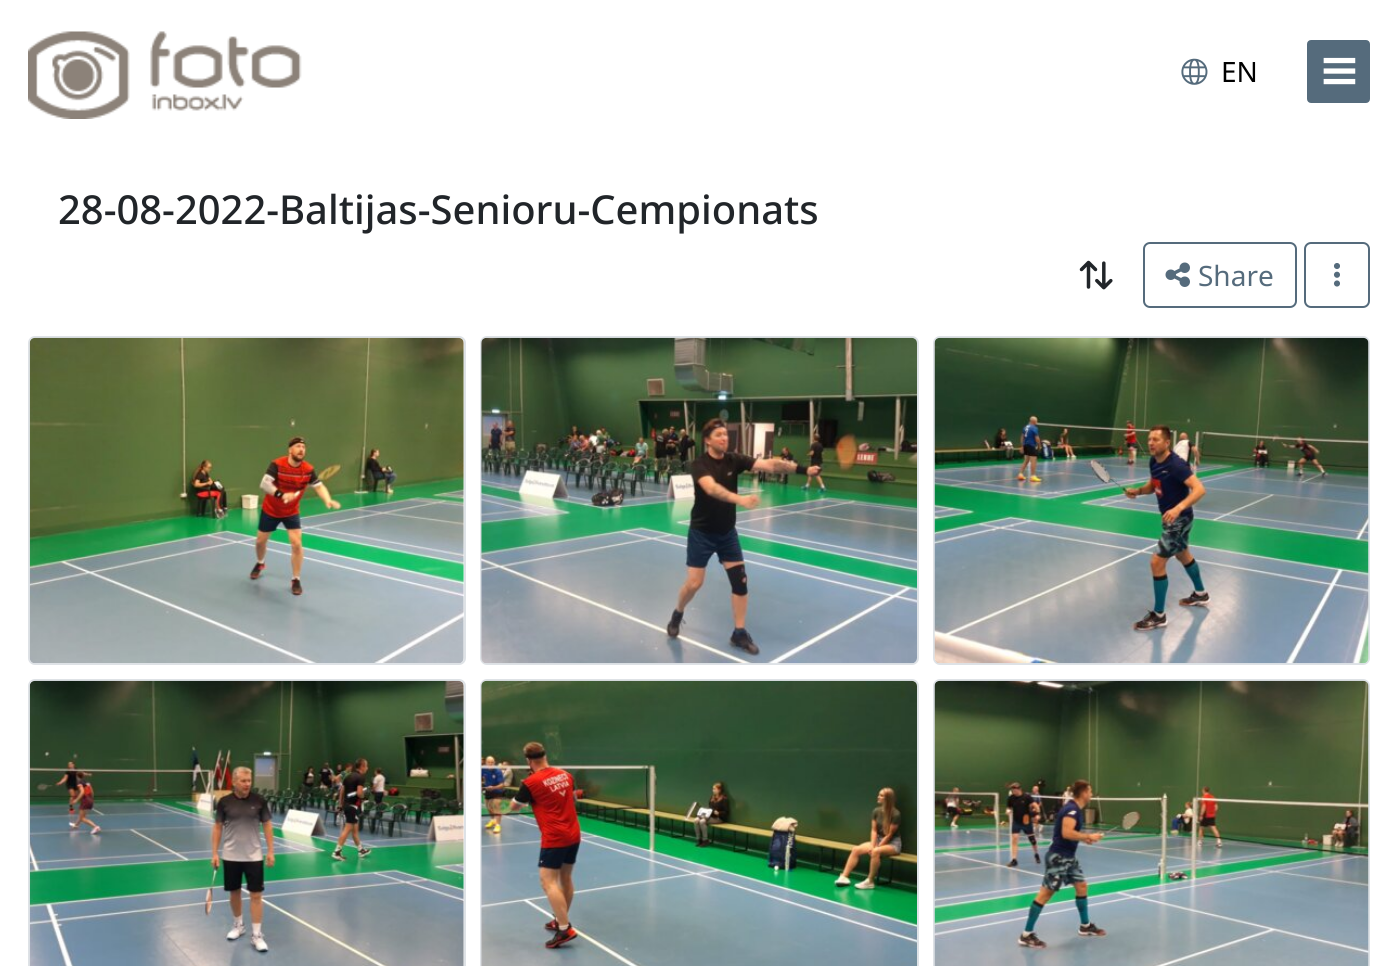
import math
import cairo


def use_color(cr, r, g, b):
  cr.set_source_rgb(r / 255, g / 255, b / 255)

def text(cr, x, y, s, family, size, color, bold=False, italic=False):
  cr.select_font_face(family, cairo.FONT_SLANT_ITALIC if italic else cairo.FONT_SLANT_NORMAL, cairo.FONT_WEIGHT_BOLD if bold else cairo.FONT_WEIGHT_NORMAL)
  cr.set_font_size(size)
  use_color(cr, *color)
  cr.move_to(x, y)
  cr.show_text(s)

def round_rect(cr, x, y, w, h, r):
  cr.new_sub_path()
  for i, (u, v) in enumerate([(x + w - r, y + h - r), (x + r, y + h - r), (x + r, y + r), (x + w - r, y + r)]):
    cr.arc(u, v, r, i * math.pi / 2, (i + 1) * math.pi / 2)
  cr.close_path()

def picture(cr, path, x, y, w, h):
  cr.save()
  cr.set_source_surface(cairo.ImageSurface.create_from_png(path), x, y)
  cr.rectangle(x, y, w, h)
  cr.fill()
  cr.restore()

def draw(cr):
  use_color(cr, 255, 255, 255)
  cr.paint()
  picture(cr, "img_01.png", 28, 31, 274, 88)
  picture(cr, "img_02.png", 1181, 58, 27, 27)
  use_color(cr, 85, 107, 124)
  round_rect(cr, 1308, 41, 61, 61, 3)
  cr.fill_preserve()
  cr.stroke()
  picture(cr, "img_03.png", 1323, 57, 33, 28)
  picture(cr, "img_04.png", 1079, 260, 19, 29)
  picture(cr, "img_05.png", 1095, 261, 18, 29)
  round_rect(cr, 1144, 243, 152, 64, 6)
  cr.stroke()
  picture(cr, "img_06.png", 1165, 262, 25, 25)
  round_rect(cr, 1305, 243, 64, 64, 6)
  cr.stroke()
  picture(cr, "img_07.png", 1333, 263, 7, 24)
  round_rect(cr, 29, 337, 436, 327, 6)
  use_color(cr, 222, 226, 230)
  cr.stroke()
  picture(cr, "img_08.png", 29, 337, 435, 326)
  round_rect(cr, 481, 337, 437, 327, 6)
  cr.stroke()
  picture(cr, "img_09.png", 481, 337, 436, 327)
  round_rect(cr, 934, 337, 435, 327, 6)
  cr.stroke()
  picture(cr, "img_10.png", 934, 337, 435, 327)
  round_rect(cr, 29, 680, 436, 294, 6)
  cr.stroke()
  picture(cr, "img_11.png", 29, 680, 435, 286)
  round_rect(cr, 481, 680, 437, 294, 6)
  cr.stroke()
  picture(cr, "img_12.png", 481, 680, 436, 286)
  round_rect(cr, 934, 680, 435, 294, 6)
  cr.stroke()
  picture(cr, "img_13.png", 934, 680, 435, 286)
  text(cr, 1221, 82, "EN", "Noto Sans", 28, (0, 0, 0))
  text(cr, 58, 224, "28-08-2022-Baltijas-Senioru-Cempionats", "Noto Sans Medium", 39.9, (33, 37, 41))
  text(cr, 1198, 286, "Share", "Noto Sans", 28, (85, 107, 124))


surface = cairo.ImageSurface(cairo.FORMAT_RGB24, 1398, 966)
cr = cairo.Context(surface)
options = cairo.FontOptions()
options.set_hint_metrics(cairo.HINT_METRICS_OFF)
options.set_hint_style(cairo.HINT_STYLE_NONE)
cr.set_font_options(options)
cr.set_miter_limit(4)
draw(cr)
surface.write_to_png("out.png")
